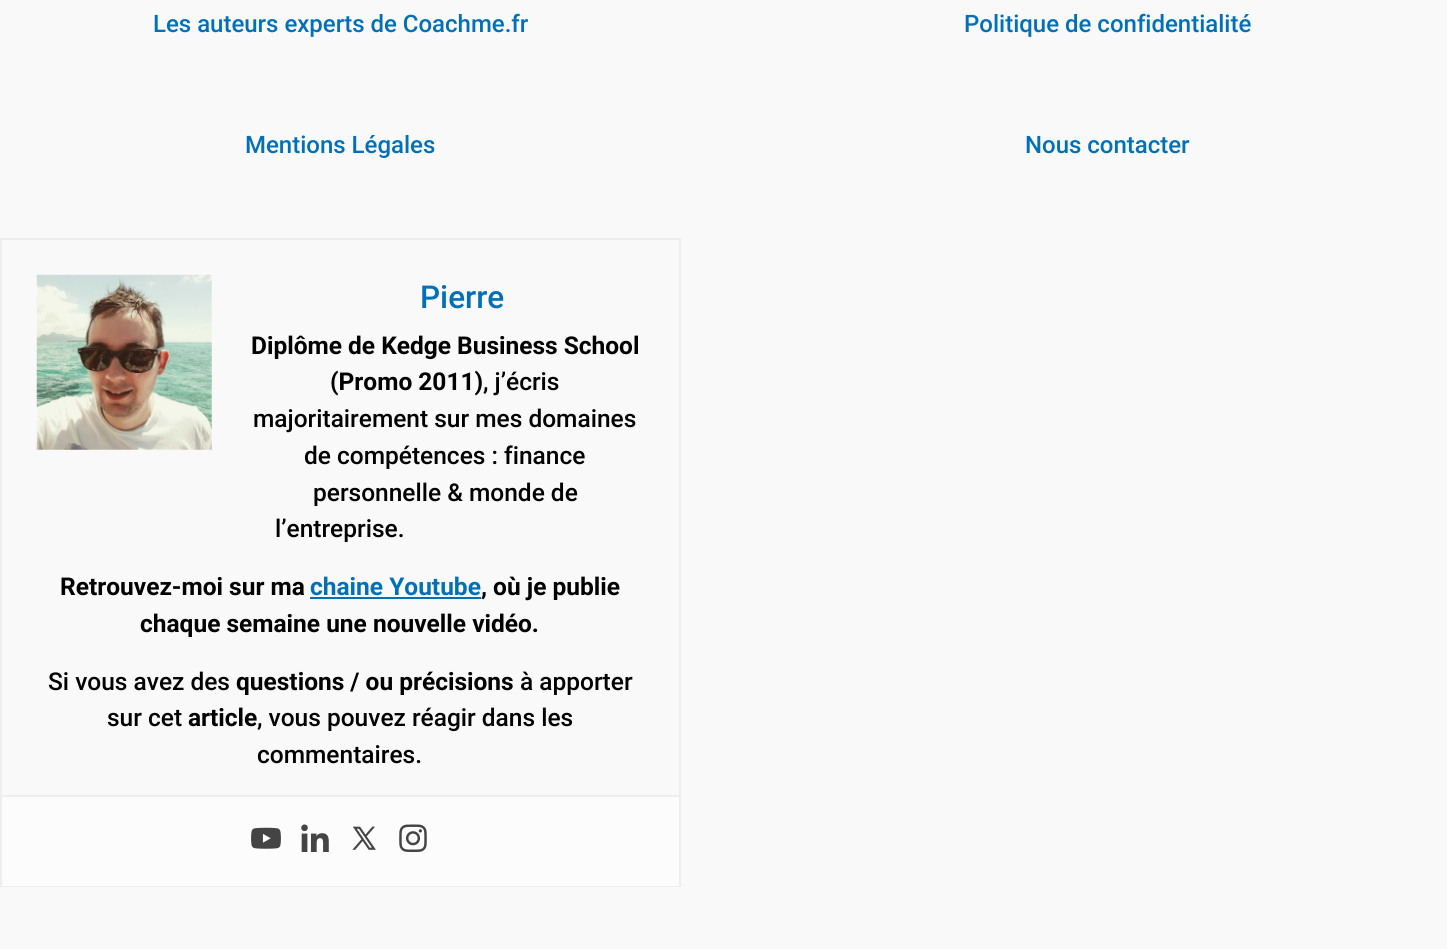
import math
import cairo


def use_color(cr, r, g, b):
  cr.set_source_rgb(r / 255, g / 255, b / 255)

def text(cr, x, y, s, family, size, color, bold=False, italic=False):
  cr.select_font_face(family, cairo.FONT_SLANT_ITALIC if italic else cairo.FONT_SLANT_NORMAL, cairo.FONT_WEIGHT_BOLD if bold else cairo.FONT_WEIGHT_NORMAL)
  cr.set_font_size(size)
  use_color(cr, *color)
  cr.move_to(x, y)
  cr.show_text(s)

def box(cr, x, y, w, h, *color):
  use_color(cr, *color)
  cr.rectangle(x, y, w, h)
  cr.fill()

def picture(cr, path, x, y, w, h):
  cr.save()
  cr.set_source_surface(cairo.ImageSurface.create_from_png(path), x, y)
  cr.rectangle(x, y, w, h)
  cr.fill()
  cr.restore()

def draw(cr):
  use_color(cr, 249, 249, 249)
  cr.paint()
  cr.rectangle(1, 239, 679, 647)
  use_color(cr, 238, 238, 238)
  cr.stroke()
  picture(cr, "img_01.png", 36, 274, 176, 176)
  box(cr, 310, 597, 171, 2, 1, 112, 185)
  box(cr, 2, 797, 677, 89, 252, 252, 252)
  box(cr, 2, 795, 677, 2, 238, 238, 238)
  picture(cr, "img_02.png", 251, 827, 30, 22)
  picture(cr, "img_03.png", 301, 824, 28, 28)
  picture(cr, "img_04.png", 352, 826, 24, 24)
  picture(cr, "img_05.png", 399, 824, 28, 28)
  text(cr, 153, 32, "Les auteurs experts de Coachme.fr", "Roboto Medium", 24, (1, 112, 185))
  text(cr, 245, 153, "Mentions Légales", "Roboto Medium", 24, (1, 112, 185))
  text(cr, 420, 308, "Pierre", "Roboto Medium", 31.5, (1, 112, 185))
  text(cr, 251, 354, "Diplôme de Kedge Business School", "Roboto", 24.5, (0, 0, 0), bold=True)
  text(cr, 330, 390, "(Promo 2011)", "Roboto", 24.5, (0, 0, 0), bold=True)
  text(cr, 483, 390, ", j’écris", "Roboto Medium", 24.5, (0, 0, 0))
  text(cr, 253, 427, "majoritairement sur mes domaines", "Roboto Medium", 24.5, (0, 0, 0))
  text(cr, 304, 464, "de compétences : finance", "Roboto Medium", 24.5, (0, 0, 0))
  text(cr, 313, 501, "personnelle & monde de", "Roboto Medium", 24.5, (0, 0, 0))
  text(cr, 275, 537, "l’entreprise.", "Roboto Medium", 24.5, (0, 0, 0))
  text(cr, 60, 595, "Retrouvez-moi sur ma", "Roboto", 24.5, (0, 0, 0), bold=True)
  text(cr, 310, 595, "chaine Youtube", "Roboto", 24.5, (1, 112, 185), bold=True)
  text(cr, 481, 595, ", où je publie", "Roboto", 24.5, (0, 0, 0), bold=True)
  text(cr, 140, 632, "chaque semaine une nouvelle vidéo.", "Roboto", 24.5, (0, 0, 0), bold=True)
  text(cr, 48, 690, "Si vous avez des", "Roboto Medium", 24.5, (0, 0, 0))
  text(cr, 236, 690, "questions / ou précisions", "Roboto", 24.5, (0, 0, 0), bold=True)
  text(cr, 520, 690, "à apporter", "Roboto Medium", 24.5, (0, 0, 0))
  text(cr, 107, 726, "sur cet", "Roboto Medium", 24.5, (0, 0, 0))
  text(cr, 188, 726, "article", "Roboto", 24.5, (0, 0, 0), bold=True)
  text(cr, 257, 726, ", vous pouvez réagir dans les", "Roboto Medium", 24.5, (0, 0, 0))
  text(cr, 257, 763, "commentaires.", "Roboto Medium", 24.5, (0, 0, 0))
  text(cr, 964, 32, "Politique de confidentialité", "Roboto Medium", 24, (1, 112, 185))
  text(cr, 1025, 153, "Nous contacter", "Roboto Medium", 24, (1, 112, 185))


surface = cairo.ImageSurface(cairo.FORMAT_RGB24, 1447, 949)
cr = cairo.Context(surface)
options = cairo.FontOptions()
options.set_hint_metrics(cairo.HINT_METRICS_OFF)
options.set_hint_style(cairo.HINT_STYLE_NONE)
cr.set_font_options(options)
cr.set_miter_limit(4)
draw(cr)
surface.write_to_png("out.png")
